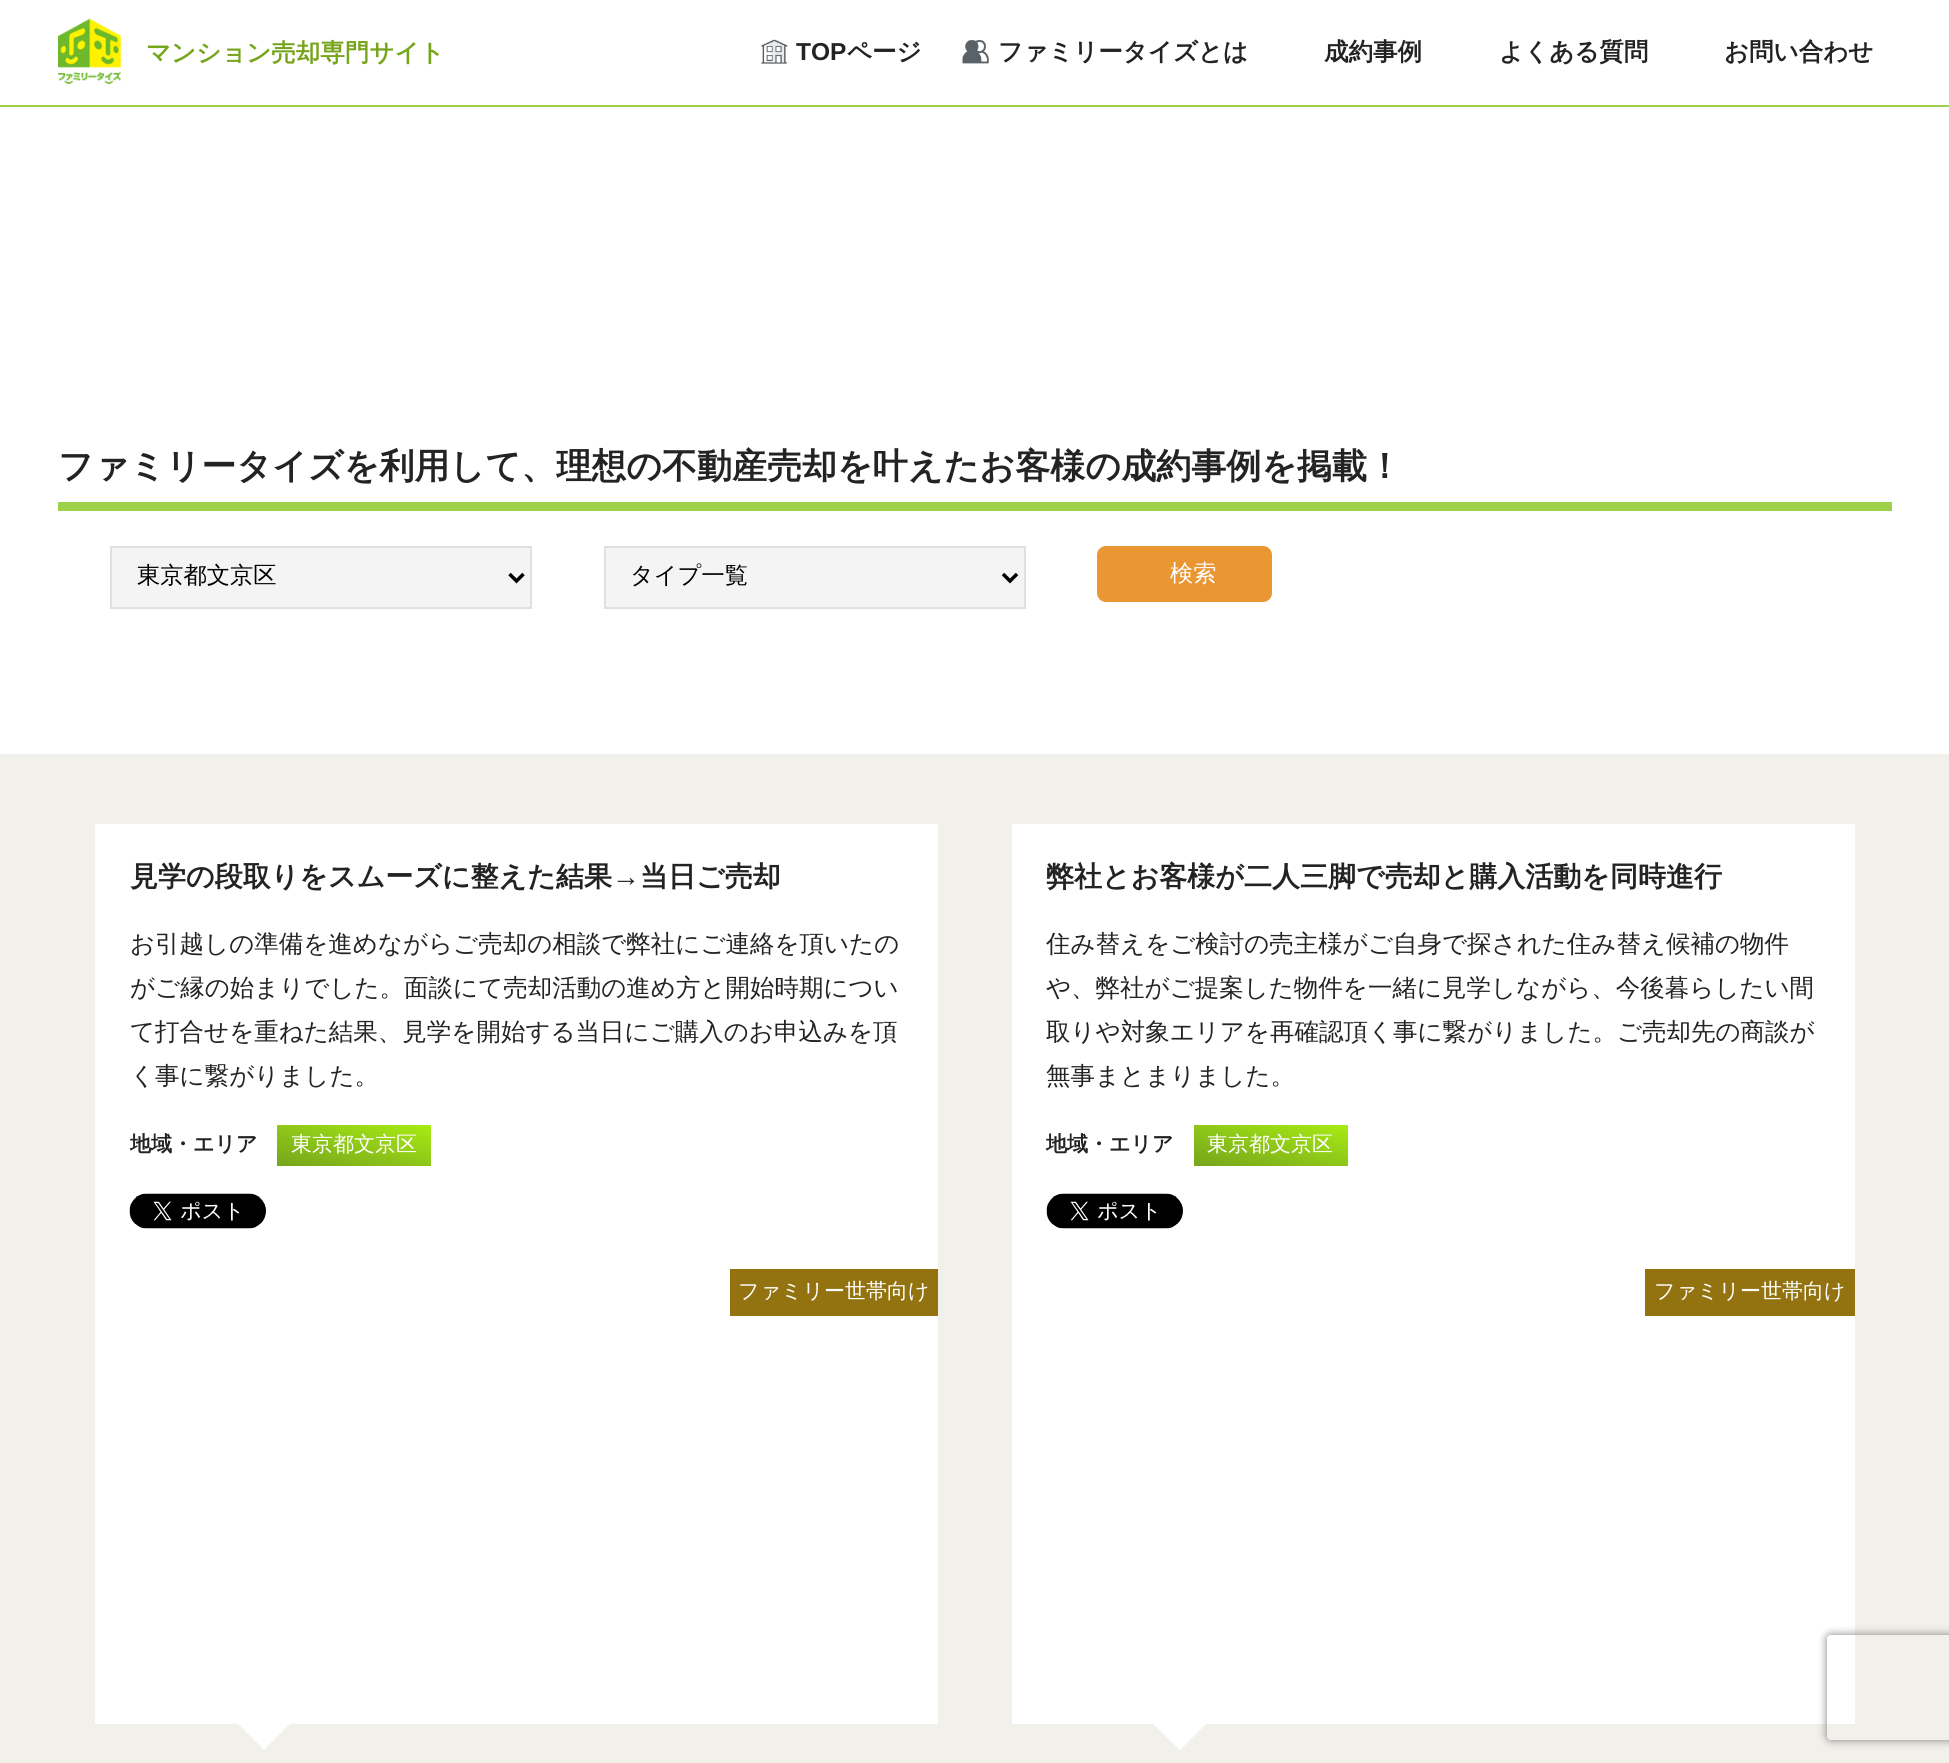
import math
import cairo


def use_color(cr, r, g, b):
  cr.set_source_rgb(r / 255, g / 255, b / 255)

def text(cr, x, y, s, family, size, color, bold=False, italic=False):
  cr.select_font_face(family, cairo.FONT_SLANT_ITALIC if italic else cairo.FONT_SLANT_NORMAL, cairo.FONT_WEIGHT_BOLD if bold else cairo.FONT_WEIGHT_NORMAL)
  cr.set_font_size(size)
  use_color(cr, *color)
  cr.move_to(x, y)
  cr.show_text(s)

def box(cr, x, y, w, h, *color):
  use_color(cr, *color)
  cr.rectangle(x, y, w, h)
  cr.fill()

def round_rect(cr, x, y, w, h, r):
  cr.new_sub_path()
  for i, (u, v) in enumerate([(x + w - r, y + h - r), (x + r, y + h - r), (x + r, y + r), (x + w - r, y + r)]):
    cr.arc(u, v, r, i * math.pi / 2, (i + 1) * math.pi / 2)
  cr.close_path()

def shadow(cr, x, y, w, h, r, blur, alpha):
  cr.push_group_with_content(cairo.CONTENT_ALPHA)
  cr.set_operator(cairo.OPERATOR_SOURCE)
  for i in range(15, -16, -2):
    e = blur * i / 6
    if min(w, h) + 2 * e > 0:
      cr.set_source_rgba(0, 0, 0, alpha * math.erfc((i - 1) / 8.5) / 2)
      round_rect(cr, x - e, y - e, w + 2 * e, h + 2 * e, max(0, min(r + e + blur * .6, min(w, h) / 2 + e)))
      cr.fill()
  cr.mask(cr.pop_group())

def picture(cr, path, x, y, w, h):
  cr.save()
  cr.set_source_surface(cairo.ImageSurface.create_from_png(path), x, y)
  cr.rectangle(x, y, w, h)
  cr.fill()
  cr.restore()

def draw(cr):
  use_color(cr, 255, 255, 255)
  cr.paint()
  box(cr, 0, 105, 1949, 2, 156, 209, 73)
  picture(cr, "img_01.png", 58, 18, 63, 66)
  picture(cr, "img_02.png", 761, 39, 27, 25)
  picture(cr, "img_03.png", 962, 40, 27, 24)
  box(cr, 58, 502, 1834, 9, 156, 209, 73)
  use_color(cr, 244, 244, 244)
  cr.rectangle(111, 547, 420, 61)
  cr.fill_preserve()
  use_color(cr, 224, 224, 224)
  cr.stroke()
  cr.new_path()
  cr.move_to(509.5, 574)
  cr.line_to(516.5, 581)
  cr.line_to(523.5, 574)
  use_color(cr, 0, 0, 0)
  cr.set_line_width(3.5)
  cr.stroke()
  use_color(cr, 244, 244, 244)
  cr.rectangle(605, 547, 420, 61)
  cr.fill_preserve()
  use_color(cr, 224, 224, 224)
  cr.set_line_width(2)
  cr.stroke()
  cr.new_path()
  cr.move_to(1003, 574)
  cr.line_to(1010, 581)
  cr.line_to(1017, 574)
  use_color(cr, 0, 0, 0)
  cr.set_line_width(3.5)
  cr.stroke()
  use_color(cr, 234, 150, 50)
  round_rect(cr, 1097, 546, 175, 56, 9)
  cr.fill()
  box(cr, 0, 754, 1949, 1009, 242, 240, 235)
  box(cr, 95, 824, 843, 900, 255, 255, 255)
  gradient = cairo.LinearGradient(344, 1183, 363, 1108)
  gradient.add_color_stop_rgba(0, 0.463, 0.647, 0.106, 1)
  gradient.add_color_stop_rgba(0.25, 0.51, 0.714, 0.102, 1)
  gradient.add_color_stop_rgba(0.5, 0.557, 0.78, 0.098, 1)
  gradient.add_color_stop_rgba(0.75, 0.608, 0.851, 0.086, 1)
  gradient.add_color_stop_rgba(1, 0.659, 0.922, 0.071, 1)
  cr.set_source(gradient)
  cr.rectangle(277, 1125, 154, 41)
  cr.fill()
  picture(cr, "img_04.png", 129, 1193, 137, 36)
  box(cr, 730, 1269, 208, 47, 147, 115, 16)
  use_color(cr, 255, 255, 255)
  cr.new_path()
  cr.move_to(238, 1724)
  cr.line_to(290, 1724)
  cr.line_to(264, 1750)
  cr.close_path()
  cr.fill()
  box(cr, 1012, 824, 843, 900, 255, 255, 255)
  gradient = cairo.LinearGradient(1261, 1183, 1280, 1108)
  gradient.add_color_stop_rgba(0, 0.463, 0.647, 0.106, 1)
  gradient.add_color_stop_rgba(0.25, 0.51, 0.714, 0.102, 1)
  gradient.add_color_stop_rgba(0.5, 0.557, 0.78, 0.098, 1)
  gradient.add_color_stop_rgba(0.75, 0.608, 0.851, 0.086, 1)
  gradient.add_color_stop_rgba(1, 0.659, 0.922, 0.071, 1)
  cr.set_source(gradient)
  cr.rectangle(1194, 1125, 154, 41)
  cr.fill()
  picture(cr, "img_05.png", 1046, 1193, 137, 36)
  box(cr, 1645, 1269, 210, 47, 147, 115, 16)
  use_color(cr, 255, 255, 255)
  cr.new_path()
  cr.move_to(1153, 1724)
  cr.line_to(1206, 1724)
  cr.line_to(1180, 1750)
  cr.close_path()
  cr.fill()
  cr.save()
  cr.set_fill_rule(cairo.FILL_RULE_EVEN_ODD)
  cr.new_path()
  cr.move_to(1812, 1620)
  cr.line_to(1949, 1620)
  cr.line_to(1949, 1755)
  cr.line_to(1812, 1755)
  cr.close_path()
  cr.move_to(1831, 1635)
  cr.line_to(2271, 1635)
  cr.curve_to(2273, 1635, 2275, 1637, 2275, 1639)
  cr.line_to(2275, 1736)
  cr.curve_to(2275, 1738, 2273, 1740, 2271, 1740)
  cr.line_to(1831, 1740)
  cr.curve_to(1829, 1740, 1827, 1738, 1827, 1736)
  cr.line_to(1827, 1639)
  cr.curve_to(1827, 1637, 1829, 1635, 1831, 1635)
  cr.close_path()
  cr.clip()
  use_color(cr, 128, 128, 128)
  shadow(cr, 1827, 1635, 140, 105, 4, 4.5, 1)
  cr.restore()
  text(cr, 146, 61, "マンション売却専門サイト", "WenQuanYi Zen Hei", 24.5, (118, 165, 27), bold=True)
  text(cr, 796, 60, "TOP", "Liberation Sans", 24.5, (35, 35, 35), bold=True)
  text(cr, 847, 60, "ページ", "WenQuanYi Zen Hei", 24.5, (35, 35, 35), bold=True)
  text(cr, 998, 60, "ファミリータイズとは", "WenQuanYi Zen Hei", 24.5, (35, 35, 35), bold=True)
  text(cr, 1324, 60, "成約事例", "WenQuanYi Zen Hei", 24.5, (35, 35, 35), bold=True)
  text(cr, 1499, 60, "よくある質問", "WenQuanYi Zen Hei", 24.5, (35, 35, 35), bold=True)
  text(cr, 1724, 60, "お問い合わせ", "WenQuanYi Zen Hei", 24.5, (35, 35, 35), bold=True)
  text(cr, 58, 478, "ファミリータイズを利用して、理想の不動産売却を叶えたお客様の成約事例を掲載！", "WenQuanYi Zen Hei", 35, (35, 35, 35), bold=True)
  text(cr, 137, 583, "東京都文京区", "WenQuanYi Zen Hei Medium", 23.25, (0, 0, 0))
  text(cr, 630, 583, "タイプ一覧", "WenQuanYi Zen Hei Medium", 23.25, (0, 0, 0))
  text(cr, 1170, 581, "検索", "WenQuanYi Zen Hei Medium", 23.25, (255, 255, 255))
  text(cr, 130, 886, "見学の段取りをスムーズに整えた結果", "WenQuanYi Zen Hei", 28, (35, 35, 35), bold=True)
  text(cr, 612, 886, "→", "Liberation Sans", 28, (35, 35, 35), bold=True)
  text(cr, 640, 886, "当日ご売却", "WenQuanYi Zen Hei", 28, (35, 35, 35), bold=True)
  text(cr, 130, 952, "お引越しの準備を進めながらご売却の相談で弊社にご連絡を頂いたの", "WenQuanYi Zen Hei Medium", 24.5, (35, 35, 35))
  text(cr, 130, 996, "がご縁の始まりでした。面談にて売却活動の進め方と開始時期につい", "WenQuanYi Zen Hei Medium", 24.5, (35, 35, 35))
  text(cr, 130, 1040, "て打合せを重ねた結果、見学を開始する当日にご購入のお申込みを頂", "WenQuanYi Zen Hei Medium", 24.5, (35, 35, 35))
  text(cr, 130, 1084, "く事に繋がりました。", "WenQuanYi Zen Hei Medium", 24.5, (35, 35, 35))
  text(cr, 130, 1151, "地域・エリア", "WenQuanYi Zen Hei", 21, (35, 35, 35), bold=True)
  text(cr, 291, 1151, "東京都文京区", "WenQuanYi Zen Hei Medium", 21, (255, 255, 255))
  text(cr, 738, 1298, "ファミリー世帯向け", "WenQuanYi Zen Hei Medium", 21, (255, 255, 255))
  text(cr, 1046, 886, "弊社とお客様が二人三脚で売却と購入活動を同時進行", "WenQuanYi Zen Hei", 28, (35, 35, 35), bold=True)
  text(cr, 1046, 952, "住み替えをご検討の売主様がご自身で探された住み替え候補の物件", "WenQuanYi Zen Hei Medium", 24.5, (35, 35, 35))
  text(cr, 1046, 996, "や、弊社がご提案した物件を一緒に見学しながら、今後暮らしたい間", "WenQuanYi Zen Hei Medium", 24.5, (35, 35, 35))
  text(cr, 1046, 1040, "取りや対象エリアを再確認頂く事に繋がりました。ご売却先の商談が", "WenQuanYi Zen Hei Medium", 24.5, (35, 35, 35))
  text(cr, 1046, 1084, "無事まとまりました。", "WenQuanYi Zen Hei Medium", 24.5, (35, 35, 35))
  text(cr, 1046, 1151, "地域・エリア", "WenQuanYi Zen Hei", 21, (35, 35, 35), bold=True)
  text(cr, 1207, 1151, "東京都文京区", "WenQuanYi Zen Hei Medium", 21, (255, 255, 255))
  text(cr, 1654, 1298, "ファミリー世帯向け", "WenQuanYi Zen Hei Medium", 21, (255, 255, 255))


surface = cairo.ImageSurface(cairo.FORMAT_RGB24, 1949, 1763)
cr = cairo.Context(surface)
options = cairo.FontOptions()
options.set_hint_metrics(cairo.HINT_METRICS_OFF)
options.set_hint_style(cairo.HINT_STYLE_NONE)
cr.set_font_options(options)
cr.set_miter_limit(4)
draw(cr)
surface.write_to_png("out.png")
